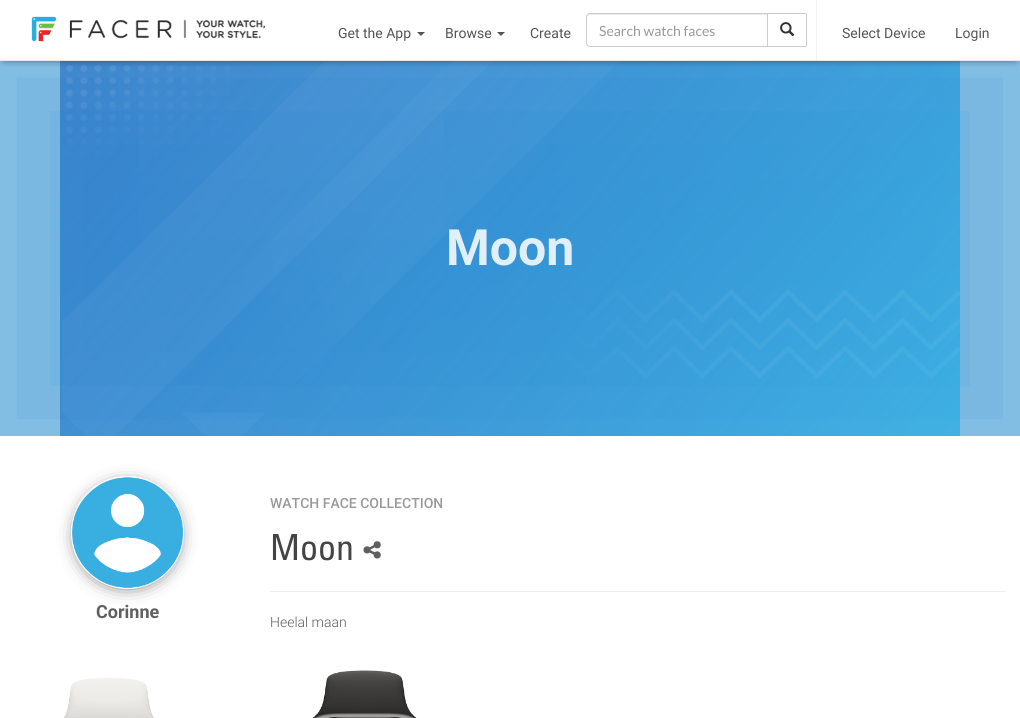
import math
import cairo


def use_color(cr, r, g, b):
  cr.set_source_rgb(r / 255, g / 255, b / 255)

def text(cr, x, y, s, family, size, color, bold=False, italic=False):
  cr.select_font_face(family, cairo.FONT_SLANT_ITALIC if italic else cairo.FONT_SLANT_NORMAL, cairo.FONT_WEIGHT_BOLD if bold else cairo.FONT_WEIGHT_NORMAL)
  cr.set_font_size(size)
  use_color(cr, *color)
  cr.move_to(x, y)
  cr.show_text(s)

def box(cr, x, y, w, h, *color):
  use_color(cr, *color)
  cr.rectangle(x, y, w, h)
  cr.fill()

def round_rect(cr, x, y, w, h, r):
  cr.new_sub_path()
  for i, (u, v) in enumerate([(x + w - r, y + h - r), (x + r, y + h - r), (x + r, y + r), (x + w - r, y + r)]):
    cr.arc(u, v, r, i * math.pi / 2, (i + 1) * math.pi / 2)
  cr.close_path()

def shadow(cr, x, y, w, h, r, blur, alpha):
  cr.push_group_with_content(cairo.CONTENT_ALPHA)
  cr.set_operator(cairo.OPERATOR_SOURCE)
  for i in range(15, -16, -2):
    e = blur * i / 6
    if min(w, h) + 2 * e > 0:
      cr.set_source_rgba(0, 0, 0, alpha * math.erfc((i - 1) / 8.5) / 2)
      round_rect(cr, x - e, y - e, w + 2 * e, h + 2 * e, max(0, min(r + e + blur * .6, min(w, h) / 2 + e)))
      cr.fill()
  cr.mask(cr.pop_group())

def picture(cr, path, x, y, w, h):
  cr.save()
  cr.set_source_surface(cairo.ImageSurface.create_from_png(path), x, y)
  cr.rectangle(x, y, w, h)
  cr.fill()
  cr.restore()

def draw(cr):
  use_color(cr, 255, 255, 255)
  cr.paint()
  box(cr, 0, 61, 1020, 375, 243, 244, 245)
  use_color(cr, 0, 0, 0)
  shadow(cr, 81, 489, 93, 93, 46.5, 10, 1)
  use_color(cr, 255, 255, 255)
  cr.arc(127.5, 532.5, 56.5, 0, 2 * math.pi)
  cr.fill()
  picture(cr, "img_05.png", 72, 477, 111, 111)
  picture(cr, "img_06.png", 363, 541, 18, 18)
  box(cr, 270, 591, 735, 1, 238, 238, 238)
  cr.save()
  cr.rectangle(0, 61, 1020, 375)
  cr.clip()
  use_color(cr, 23, 136, 210)
  shadow(cr, -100, -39, 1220, 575, 0, 100, 0.61)
  cr.restore()
  picture(cr, "img_03.png", 139, 61, 305, 178)
  picture(cr, "img_04.png", 62, 61, 898, 375)
  gradient = cairo.LinearGradient(154, -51, 866, 548)
  gradient.add_color_stop_rgba(0, 0, 0.325, 0.725, 0.5)
  gradient.add_color_stop_rgba(1, 0.153, 0.678, 0.89, 0.72)
  cr.set_source(gradient)
  cr.rectangle(60, 61, 900, 375)
  cr.fill()
  cr.save()
  cr.rectangle(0, 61, 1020, 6)
  cr.clip()
  use_color(cr, 0, 0, 0)
  shadow(cr, 5, 6, 1010, 51, 0, 5, 1)
  cr.restore()
  box(cr, 0, 60, 1020, 1, 231, 231, 231)
  picture(cr, "img_01.png", 31, 16, 234, 26)
  use_color(cr, 85, 85, 85)
  cr.new_path()
  cr.move_to(417, 32)
  cr.line_to(425, 32)
  cr.line_to(421, 36)
  cr.close_path()
  cr.fill()
  cr.new_path()
  cr.move_to(497, 32)
  cr.line_to(505, 32)
  cr.line_to(501, 36)
  cr.close_path()
  cr.fill()
  use_color(cr, 236, 236, 236)
  cr.new_path()
  cr.move_to(590, 15)
  cr.line_to(767, 15)
  cr.line_to(767, 14)
  cr.line_to(589, 14)
  cr.curve_to(587, 15, 587, 16, 587, 18)
  cr.curve_to(587, 16, 588, 15, 590, 15)
  cr.close_path()
  cr.fill()
  cr.new_path()
  cr.move_to(590, 13.5)
  cr.line_to(767.5, 13.5)
  cr.line_to(767.5, 46.5)
  cr.line_to(590, 46.5)
  cr.curve_to(588, 46.5, 586.5, 45, 586.5, 43)
  cr.line_to(586.5, 17)
  cr.curve_to(586.5, 15, 588, 13.5, 590, 13.5)
  cr.close_path()
  use_color(cr, 204, 204, 204)
  cr.set_line_width(1)
  cr.stroke()
  use_color(cr, 255, 255, 255)
  cr.new_path()
  cr.move_to(767.5, 13.5)
  cr.line_to(805, 13.5)
  cr.curve_to(806, 13.5, 806.5, 14, 806.5, 15)
  cr.line_to(806.5, 45)
  cr.curve_to(806.5, 46, 806, 46.5, 805, 46.5)
  cr.line_to(767.5, 46.5)
  cr.close_path()
  cr.fill_preserve()
  use_color(cr, 204, 204, 204)
  cr.stroke()
  picture(cr, "img_02.png", 780, 22, 15, 14)
  box(cr, 816, 0, 1, 60, 242, 242, 242)
  picture(cr, "img_07.png", 64, 677, 90, 41)
  picture(cr, "img_08.png", 312, 670, 105, 48)
  text(cr, 338, 38, "Get the App", "Roboto", 14, (85, 85, 85))
  text(cr, 445, 38, "Browse", "Roboto", 14, (85, 85, 85))
  text(cr, 530, 38, "Create", "Roboto", 14, (85, 85, 85))
  text(cr, 599, 36, "Search watch faces", "Lato", 14, (153, 153, 153))
  text(cr, 842, 38, "Select Device", "Roboto", 14, (85, 85, 85))
  text(cr, 955, 38, "Login", "Roboto", 14, (85, 85, 85))
  text(cr, 446, 265, "Moon", "Roboto", 50, (225, 239, 249), bold=True)
  text(cr, 96, 618, "Corinne", "Roboto", 18, (95, 95, 95), bold=True)
  text(cr, 270, 508, "WATCH FACE COLLECTION", "Roboto Medium", 14, (153, 153, 153))
  text(cr, 270, 560, "Moon", "Univers", 36, (68, 68, 68))
  text(cr, 270, 627, "Heelal maan", "Roboto Light", 14, (95, 95, 95))


surface = cairo.ImageSurface(cairo.FORMAT_RGB24, 1020, 718)
cr = cairo.Context(surface)
options = cairo.FontOptions()
options.set_hint_metrics(cairo.HINT_METRICS_OFF)
options.set_hint_style(cairo.HINT_STYLE_NONE)
cr.set_font_options(options)
cr.set_miter_limit(4)
draw(cr)
surface.write_to_png("out.png")
